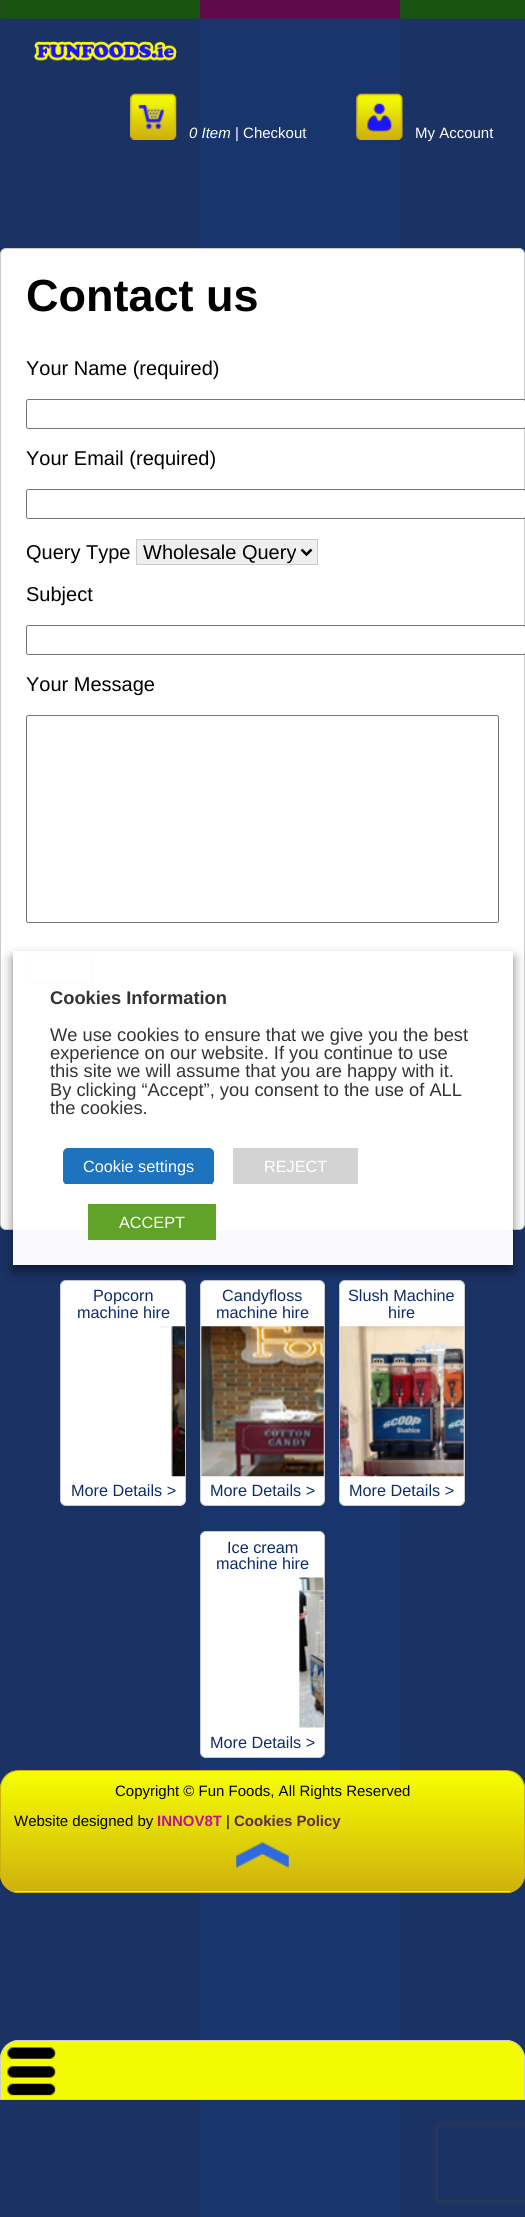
import math
import cairo


def use_color(cr, r, g, b):
  cr.set_source_rgb(r / 255, g / 255, b / 255)

def text(cr, x, y, s, family, size, color, bold=False, italic=False):
  cr.select_font_face(family, cairo.FONT_SLANT_ITALIC if italic else cairo.FONT_SLANT_NORMAL, cairo.FONT_WEIGHT_BOLD if bold else cairo.FONT_WEIGHT_NORMAL)
  cr.set_font_size(size)
  use_color(cr, *color)
  cr.move_to(x, y)
  cr.show_text(s)

def box(cr, x, y, w, h, *color):
  use_color(cr, *color)
  cr.rectangle(x, y, w, h)
  cr.fill()

def round_rect(cr, x, y, w, h, r):
  cr.new_sub_path()
  for i, (u, v) in enumerate([(x + w - r, y + h - r), (x + r, y + h - r), (x + r, y + r), (x + w - r, y + r)]):
    cr.arc(u, v, r, i * math.pi / 2, (i + 1) * math.pi / 2)
  cr.close_path()

def shadow(cr, x, y, w, h, r, blur, alpha):
  cr.push_group_with_content(cairo.CONTENT_ALPHA)
  cr.set_operator(cairo.OPERATOR_SOURCE)
  for i in range(15, -16, -2):
    e = blur * i / 6
    if min(w, h) + 2 * e > 0:
      cr.set_source_rgba(0, 0, 0, alpha * math.erfc((i - 1) / 8.5) / 2)
      round_rect(cr, x - e, y - e, w + 2 * e, h + 2 * e, max(0, min(r + e + blur * .6, min(w, h) / 2 + e)))
      cr.fill()
  cr.mask(cr.pop_group())

def picture(cr, path, x, y, w, h):
  cr.save()
  cr.set_source_surface(cairo.ImageSurface.create_from_png(path), x, y)
  cr.rectangle(x, y, w, h)
  cr.fill()
  cr.restore()

def draw(cr):
  use_color(cr, 255, 255, 255)
  cr.paint()
  picture(cr, "img_01.png", 0, 18, 525, 2199)
  picture(cr, "img_02.png", 0, 0, 525, 19)
  picture(cr, "img_03.png", 34, 41, 143, 20)
  picture(cr, "img_04.png", 130, 93, 47, 47)
  picture(cr, "img_05.png", 356, 93, 47, 47)
  use_color(cr, 243, 250, 1)
  cr.new_path()
  cr.move_to(19, 2040)
  cr.line_to(506, 2040)
  cr.curve_to(516.5, 2040, 525, 2048.5, 525, 2059)
  cr.line_to(525, 2100)
  cr.line_to(0, 2100)
  cr.line_to(0, 2059)
  cr.curve_to(0, 2048.5, 8.5, 2040, 19, 2040)
  cr.close_path()
  cr.fill()
  picture(cr, "img_06.png", 7, 2047, 49, 49)
  cr.new_path()
  cr.move_to(19, 2040.5)
  cr.line_to(506, 2040.5)
  cr.curve_to(516, 2040.5, 524.5, 2049, 524.5, 2059)
  cr.line_to(524.5, 2099.5)
  cr.line_to(0.5, 2099.5)
  cr.line_to(0.5, 2059)
  cr.curve_to(0.5, 2049, 9, 2040.5, 19, 2040.5)
  cr.close_path()
  use_color(cr, 204, 204, 204)
  cr.set_line_width(1)
  cr.stroke()
  use_color(cr, 255, 255, 255)
  round_rect(cr, 0.5, 248.5, 524, 981, 5.5)
  cr.fill_preserve()
  use_color(cr, 204, 204, 204)
  cr.stroke()
  use_color(cr, 255, 255, 255)
  round_rect(cr, 26.5, 399.5, 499, 29, 2)
  cr.fill_preserve()
  use_color(cr, 118, 118, 118)
  cr.stroke()
  use_color(cr, 255, 255, 255)
  round_rect(cr, 26.5, 489.5, 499, 29, 2)
  cr.fill_preserve()
  use_color(cr, 118, 118, 118)
  cr.stroke()
  use_color(cr, 239, 239, 239)
  cr.rectangle(136.5, 539.5, 181, 25)
  cr.fill_preserve()
  use_color(cr, 204, 204, 204)
  cr.stroke()
  cr.new_path()
  cr.move_to(301.5, 549.5)
  cr.line_to(306.5, 554.5)
  cr.line_to(311.5, 549.5)
  use_color(cr, 0, 0, 0)
  cr.set_line_width(2.5)
  cr.stroke()
  use_color(cr, 255, 255, 255)
  round_rect(cr, 26.5, 625.5, 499, 29, 2)
  cr.fill_preserve()
  use_color(cr, 118, 118, 118)
  cr.set_line_width(1)
  cr.stroke()
  round_rect(cr, 26.5, 715.5, 472, 207, 2)
  cr.stroke()
  use_color(cr, 239, 239, 239)
  round_rect(cr, 26.5, 956.5, 66, 27, 2)
  cr.fill_preserve()
  use_color(cr, 118, 118, 118)
  cr.stroke()
  use_color(cr, 255, 255, 255)
  round_rect(cr, 60.5, 1280.5, 125, 225, 5.5)
  cr.fill_preserve()
  use_color(cr, 204, 204, 204)
  cr.stroke()
  picture(cr, "img_07.png", 160, 1326, 25, 151)
  use_color(cr, 255, 255, 255)
  round_rect(cr, 200.5, 1280.5, 124, 225, 5.5)
  cr.fill_preserve()
  use_color(cr, 204, 204, 204)
  cr.stroke()
  picture(cr, "img_08.png", 201, 1326, 123, 151)
  use_color(cr, 255, 255, 255)
  round_rect(cr, 339.5, 1280.5, 125, 225, 5.5)
  cr.fill_preserve()
  use_color(cr, 204, 204, 204)
  cr.stroke()
  picture(cr, "img_09.png", 340, 1326, 124, 151)
  use_color(cr, 255, 255, 255)
  round_rect(cr, 200.5, 1531.5, 124, 226, 5.5)
  cr.fill_preserve()
  use_color(cr, 204, 204, 204)
  cr.stroke()
  picture(cr, "img_10.png", 299, 1577, 25, 151)
  cr.save()
  round_rect(cr, 0, 1770, 525, 123, 19)
  cr.clip()
  gradient = cairo.LinearGradient(263, 1891, 263, 1771)
  gradient.add_color_stop_rgba(0, 0.812, 0.694, 0.051, 1)
  gradient.add_color_stop_rgba(1, 0.965, 1, 0, 1)
  cr.set_source(gradient)
  cr.rectangle(0, 1771, 525, 120)
  cr.fill()
  gradient = cairo.LinearGradient(263, 2011, 263, 1891)
  gradient.add_color_stop_rgba(0, 0.812, 0.694, 0.051, 1)
  gradient.add_color_stop_rgba(1, 0.965, 1, 0, 1)
  cr.set_source(gradient)
  cr.rectangle(10, 1891, 505, 2)
  cr.fill()
  cr.restore()
  round_rect(cr, 0.5, 1770.5, 524, 122, 18.5)
  use_color(cr, 207, 177, 13)
  cr.stroke()
  picture(cr, "img_11.png", 236, 1842, 53, 26)
  cr.save()
  cr.set_fill_rule(cairo.FILL_RULE_EVEN_ODD)
  cr.new_path()
  cr.move_to(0, 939)
  cr.line_to(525, 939)
  cr.line_to(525, 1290)
  cr.line_to(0, 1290)
  cr.close_path()
  cr.move_to(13, 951)
  cr.line_to(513, 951)
  cr.line_to(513, 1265)
  cr.line_to(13, 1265)
  cr.close_path()
  cr.clip()
  use_color(cr, 0, 0, 0)
  shadow(cr, 13, 958, 500, 313, 0, 6, 0.5)
  cr.restore()
  cr.set_source_rgba(1, 1, 1, 0.97)
  cr.rectangle(13, 951, 500, 314)
  cr.fill()
  use_color(cr, 30, 115, 190)
  round_rect(cr, 63, 1148, 151, 37, 5)
  cr.fill()
  box(cr, 65, 1184, 146, 1, 255, 252, 252)
  box(cr, 233, 1148, 125, 36, 211, 211, 211)
  box(cr, 88, 1204, 128, 36, 97, 162, 41)
  cr.save()
  cr.set_fill_rule(cairo.FILL_RULE_EVEN_ODD)
  cr.new_path()
  cr.move_to(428, 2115)
  cr.line_to(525, 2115)
  cr.line_to(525, 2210)
  cr.line_to(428, 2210)
  cr.close_path()
  cr.move_to(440.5, 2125)
  cr.line_to(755.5, 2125)
  cr.curve_to(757, 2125, 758, 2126, 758, 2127.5)
  cr.line_to(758, 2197.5)
  cr.curve_to(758, 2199, 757, 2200, 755.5, 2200)
  cr.line_to(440.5, 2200)
  cr.curve_to(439, 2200, 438, 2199, 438, 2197.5)
  cr.line_to(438, 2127.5)
  cr.curve_to(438, 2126, 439, 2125, 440.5, 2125)
  cr.close_path()
  cr.clip()
  use_color(cr, 64, 64, 64)
  shadow(cr, 438, 2125, 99, 75, 2.5, 3, 1)
  cr.restore()
  text(cr, 189, 138, "0 Item", "Liberation Sans", 15, (255, 255, 255), italic=True)
  text(cr, 235, 138, "| Checkout", "Liberation Sans", 15, (255, 255, 255))
  text(cr, 415, 138, "My Account", "Liberation Sans", 15, (255, 255, 255))
  text(cr, 26, 311, "Contact us", "Liberation Sans", 45, (0, 0, 0), bold=True)
  text(cr, 26, 375, "Your Name (required)", "Liberation Sans", 20, (0, 0, 0))
  text(cr, 26, 465, "Your Email (required)", "Liberation Sans", 20, (0, 0, 0))
  text(cr, 26, 559, "Query Type", "Liberation Sans", 20, (0, 0, 0))
  text(cr, 143, 559, "Wholesale Query", "Liberation Sans", 20, (0, 0, 0))
  text(cr, 26, 601, "Subject", "Liberation Sans", 20, (0, 0, 0))
  text(cr, 26, 691, "Your Message", "Liberation Sans", 20, (0, 0, 0))
  text(cr, 93, 1301, "Popcorn", "Liberation Sans", 16.25, (13, 45, 106))
  text(cr, 77, 1318, "machine hire", "Liberation Sans", 16.25, (13, 45, 106))
  text(cr, 71, 1496, "More Details >", "Liberation Sans", 16.25, (13, 45, 106))
  text(cr, 222, 1301, "Candyfloss", "Liberation Sans", 16.25, (13, 45, 106))
  text(cr, 216, 1318, "machine hire", "Liberation Sans", 16.25, (13, 45, 106))
  text(cr, 210, 1496, "More Details >", "Liberation Sans", 16.25, (13, 45, 106))
  text(cr, 348, 1301, "Slush Machine", "Liberation Sans", 16.25, (13, 45, 106))
  text(cr, 388, 1318, "hire", "Liberation Sans", 16.25, (13, 45, 106))
  text(cr, 349, 1496, "More Details >", "Liberation Sans", 16.25, (13, 45, 106))
  text(cr, 227, 1553, "Ice cream", "Liberation Sans", 16.25, (13, 45, 106))
  text(cr, 216, 1569, "machine hire", "Liberation Sans", 16.25, (13, 45, 106))
  text(cr, 210, 1748, "More Details >", "Liberation Sans", 16.25, (13, 45, 106))
  text(cr, 115, 1796, "Copyright © Fun Foods, All Rights Reserved", "Liberation Sans", 15, (0, 0, 0))
  text(cr, 14, 1826, "Website designed by", "Liberation Sans", 15, (0, 0, 0))
  text(cr, 157, 1826, "INNOV8T", "Liberation Sans", 15, (190, 19, 149), bold=True)
  text(cr, 226, 1826, "|", "Liberation Sans", 15, (0, 0, 0))
  text(cr, 234, 1826, "Cookies Policy", "Liberation Sans", 15, (88, 45, 73), bold=True)
  text(cr, 50, 1004, "Cookies Information", "Liberation Sans", 18.3, (51, 51, 51), bold=True)
  text(cr, 50, 1041, "We use cookies to ensure that we give you the best", "Liberation Sans", 18.3, (51, 51, 51))
  text(cr, 50, 1059, "experience on our website. If you continue to use", "Liberation Sans", 18.3, (51, 51, 51))
  text(cr, 50, 1077, "this site we will assume that you are happy with it.", "Liberation Sans", 18.3, (51, 51, 51))
  text(cr, 50, 1096, "By clicking “Accept”, you consent to the use of ALL", "Liberation Sans", 18.3, (51, 51, 51))
  text(cr, 50, 1114, "the cookies.", "Liberation Sans", 18.3, (51, 51, 51))
  text(cr, 83, 1172, "Cookie settings", "Liberation Sans", 16.25, (255, 255, 255))
  text(cr, 264, 1172, "REJECT", "Liberation Sans", 16.25, (255, 255, 255))
  text(cr, 119, 1228, "ACCEPT", "Liberation Sans", 16.25, (255, 255, 255))


surface = cairo.ImageSurface(cairo.FORMAT_RGB24, 525, 2217)
cr = cairo.Context(surface)
options = cairo.FontOptions()
options.set_hint_metrics(cairo.HINT_METRICS_OFF)
options.set_hint_style(cairo.HINT_STYLE_NONE)
cr.set_font_options(options)
cr.set_miter_limit(4)
draw(cr)
surface.write_to_png("out.png")
